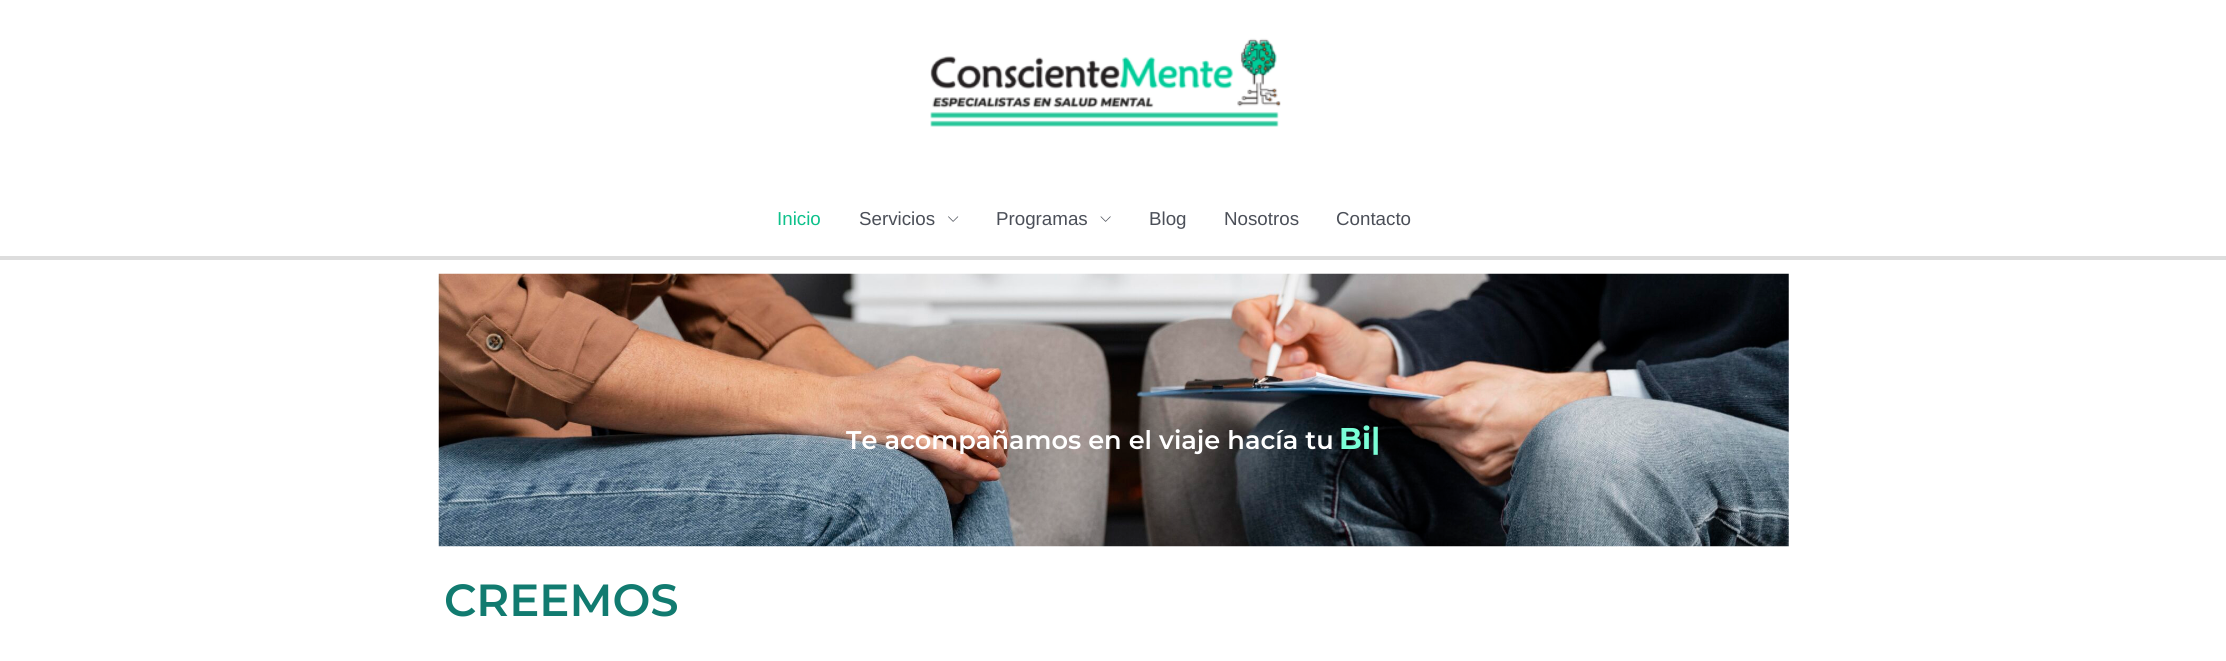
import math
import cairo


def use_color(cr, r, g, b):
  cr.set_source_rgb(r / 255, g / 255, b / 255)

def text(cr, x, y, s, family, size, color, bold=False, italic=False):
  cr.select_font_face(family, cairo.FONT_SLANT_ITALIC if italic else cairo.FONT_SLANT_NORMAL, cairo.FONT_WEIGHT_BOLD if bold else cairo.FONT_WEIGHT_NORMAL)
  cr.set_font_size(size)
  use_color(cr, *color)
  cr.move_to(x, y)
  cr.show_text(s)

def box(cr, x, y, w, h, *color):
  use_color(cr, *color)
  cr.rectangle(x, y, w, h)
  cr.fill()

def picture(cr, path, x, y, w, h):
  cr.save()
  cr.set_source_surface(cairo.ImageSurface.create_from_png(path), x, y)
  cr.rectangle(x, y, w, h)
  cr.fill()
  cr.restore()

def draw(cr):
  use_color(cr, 255, 255, 255)
  cr.paint()
  box(cr, 0, 256, 2226, 4, 221, 221, 221)
  picture(cr, "img_01.png", 930, 38, 351, 89)
  picture(cr, "img_02.png", 948, 216, 11, 6)
  picture(cr, "img_03.png", 1100, 216, 11, 6)
  picture(cr, "img_04.png", 438, 273, 1351, 274)
  text(cr, 777, 225, "Inicio", "Liberation Sans", 18.75, (14, 193, 139))
  text(cr, 859, 225, "Servicios", "Liberation Sans", 18.75, (75, 79, 88))
  text(cr, 996, 225, "Programas", "Liberation Sans", 18.75, (75, 79, 88))
  text(cr, 1149, 225, "Blog", "Liberation Sans", 18.75, (75, 79, 88))
  text(cr, 1224, 225, "Nosotros", "Liberation Sans", 18.75, (75, 79, 88))
  text(cr, 1336, 225, "Contacto", "Liberation Sans", 18.75, (75, 79, 88))
  text(cr, 846, 449, "Te acompañamos en el viaje hacía tu", "Montserrat SemiBold", 25.6, (255, 255, 255))
  text(cr, 1339, 449, "Bi|", "Montserrat", 30, (122, 255, 215), bold=True)
  text(cr, 444, 616, "CREEMOS", "Montserrat SemiBold", 45, (17, 123, 112))


surface = cairo.ImageSurface(cairo.FORMAT_RGB24, 2226, 661)
cr = cairo.Context(surface)
options = cairo.FontOptions()
options.set_hint_metrics(cairo.HINT_METRICS_OFF)
options.set_hint_style(cairo.HINT_STYLE_NONE)
cr.set_font_options(options)
cr.set_miter_limit(4)
draw(cr)
surface.write_to_png("out.png")
